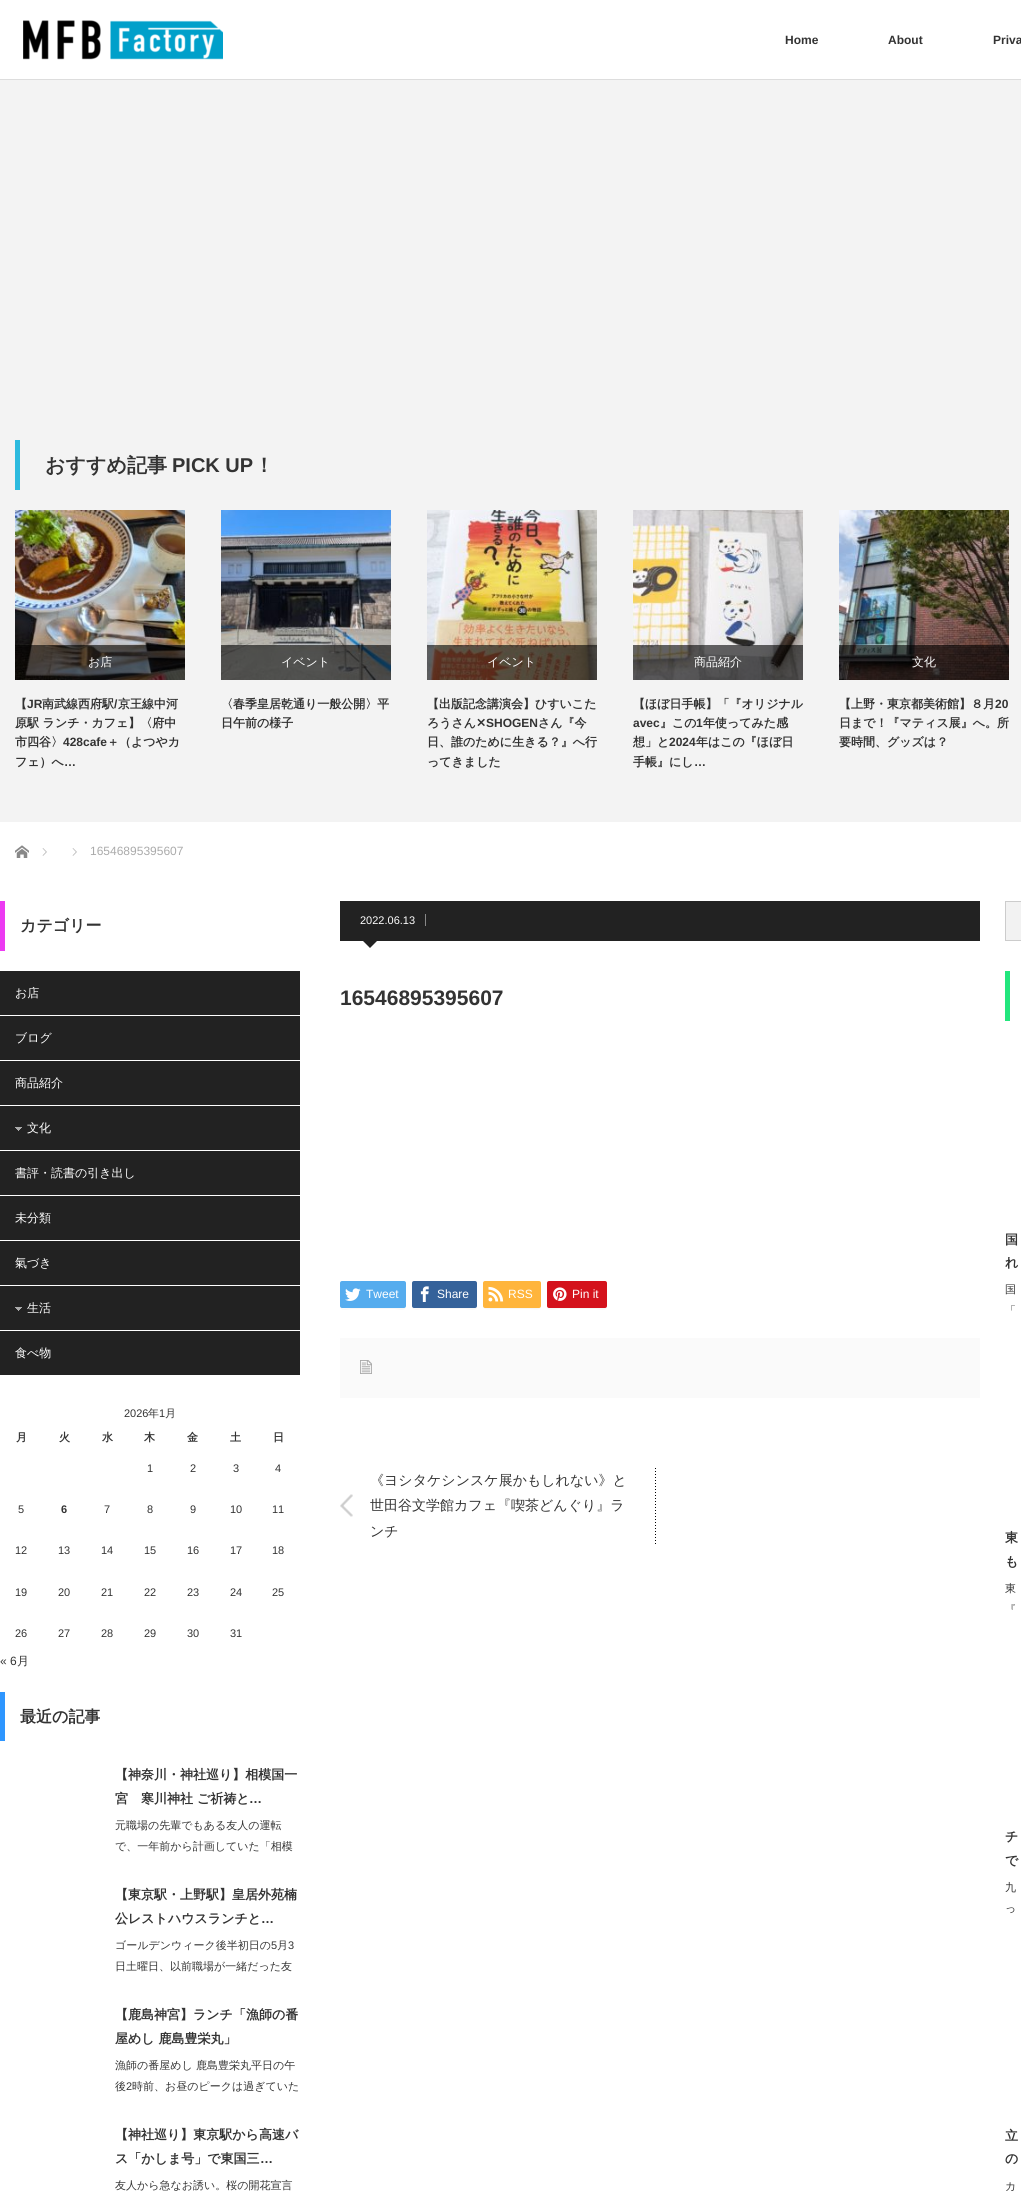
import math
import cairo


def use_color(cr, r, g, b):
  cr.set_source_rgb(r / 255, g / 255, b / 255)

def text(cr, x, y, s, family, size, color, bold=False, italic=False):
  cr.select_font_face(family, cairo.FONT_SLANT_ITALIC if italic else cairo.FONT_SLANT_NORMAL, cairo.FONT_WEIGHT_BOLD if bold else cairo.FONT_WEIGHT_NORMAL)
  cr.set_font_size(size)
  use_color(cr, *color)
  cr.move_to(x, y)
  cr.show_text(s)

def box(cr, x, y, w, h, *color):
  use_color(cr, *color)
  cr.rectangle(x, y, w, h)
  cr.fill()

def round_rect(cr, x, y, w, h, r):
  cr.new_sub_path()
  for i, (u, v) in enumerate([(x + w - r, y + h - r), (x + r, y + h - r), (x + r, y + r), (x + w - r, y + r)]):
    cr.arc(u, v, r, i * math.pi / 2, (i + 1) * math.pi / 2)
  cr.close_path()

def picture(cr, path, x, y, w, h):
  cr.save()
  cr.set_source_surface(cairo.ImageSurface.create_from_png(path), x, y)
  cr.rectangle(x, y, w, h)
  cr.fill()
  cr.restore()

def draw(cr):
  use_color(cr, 255, 255, 255)
  cr.paint()
  box(cr, 0, 79, 1021, 1, 221, 221, 221)
  picture(cr, "img_01.png", 23, 20, 200, 40)
  box(cr, 0, 80, 1021, 742, 243, 243, 243)
  box(cr, 15, 440, 5, 50, 44, 186, 222)
  picture(cr, "img_02.png", 15, 510, 170, 170)
  cr.set_source_rgba(0, 0, 0, 0.6)
  cr.rectangle(15, 645, 170, 35)
  cr.fill()
  picture(cr, "img_03.png", 221, 510, 170, 170)
  cr.rectangle(221, 645, 170, 35)
  cr.fill()
  picture(cr, "img_04.png", 427, 510, 170, 170)
  cr.rectangle(427, 645, 170, 35)
  cr.fill()
  picture(cr, "img_05.png", 633, 510, 170, 170)
  cr.rectangle(633, 645, 170, 35)
  cr.fill()
  picture(cr, "img_06.png", 839, 510, 170, 170)
  cr.rectangle(839, 645, 170, 35)
  cr.fill()
  picture(cr, "img_07.png", 15, 845, 14, 13)
  picture(cr, "img_08.png", 42, 848, 5, 8)
  picture(cr, "img_08.png", 72, 848, 5, 8)
  box(cr, 0, 901, 5, 50, 236, 58, 242)
  box(cr, 0, 971, 300, 44, 34, 34, 34)
  box(cr, 0, 1016, 300, 44, 34, 34, 34)
  box(cr, 0, 1061, 300, 44, 34, 34, 34)
  box(cr, 0, 1106, 300, 44, 34, 34, 34)
  picture(cr, "img_09.png", 15, 1127, 7, 4)
  box(cr, 0, 1151, 300, 44, 34, 34, 34)
  box(cr, 0, 1196, 300, 44, 34, 34, 34)
  box(cr, 0, 1241, 300, 44, 34, 34, 34)
  box(cr, 0, 1286, 300, 44, 34, 34, 34)
  picture(cr, "img_09.png", 15, 1307, 7, 4)
  box(cr, 0, 1331, 300, 44, 34, 34, 34)
  box(cr, 0, 1692, 5, 49, 46, 150, 255)
  box(cr, 340, 901, 640, 40, 34, 34, 34)
  box(cr, 425, 914, 1, 12, 136, 136, 136)
  use_color(cr, 34, 34, 34)
  cr.new_path()
  cr.move_to(360, 938)
  cr.line_to(380, 938)
  cr.line_to(370, 948)
  cr.close_path()
  cr.fill()
  use_color(cr, 247, 247, 247)
  cr.new_path()
  cr.move_to(340, 1306)
  cr.curve_to(340, 1312, 349, 1309, 352, 1309)
  cr.line_to(394, 1309)
  cr.curve_to(397, 1309, 406, 1312, 406, 1306)
  cr.line_to(405, 1308)
  cr.line_to(352, 1308)
  cr.curve_to(348, 1308, 340, 1310, 340, 1306)
  cr.close_path()
  cr.fill()
  use_color(cr, 85, 172, 238)
  round_rect(cr, 340, 1281, 66, 27, 2)
  cr.fill()
  picture(cr, "img_10.png", 345, 1288, 16, 13)
  use_color(cr, 247, 247, 247)
  cr.new_path()
  cr.move_to(412, 1306)
  cr.curve_to(412, 1312, 420, 1309, 424, 1309)
  cr.line_to(465, 1309)
  cr.curve_to(469, 1309, 477, 1312, 477, 1306)
  cr.line_to(476, 1308)
  cr.line_to(424, 1308)
  cr.curve_to(420, 1308, 412, 1310, 412, 1306)
  cr.close_path()
  cr.fill()
  use_color(cr, 53, 98, 154)
  round_rect(cr, 412, 1281, 65, 27, 2)
  cr.fill()
  picture(cr, "img_11.png", 420, 1286, 9, 16)
  use_color(cr, 247, 247, 247)
  cr.new_path()
  cr.move_to(483, 1306)
  cr.curve_to(483, 1311, 490, 1309, 494, 1309)
  cr.line_to(530, 1309)
  cr.curve_to(534, 1309, 541, 1311, 541, 1306)
  cr.line_to(540, 1308)
  cr.line_to(484, 1308)
  cr.close_path()
  cr.fill()
  use_color(cr, 255, 181, 60)
  round_rect(cr, 483, 1281, 58, 27, 2)
  cr.fill()
  picture(cr, "img_12.png", 488, 1286, 16, 16)
  use_color(cr, 247, 247, 247)
  cr.new_path()
  cr.move_to(547, 1306)
  cr.curve_to(547, 1312, 555, 1309, 558, 1309)
  cr.line_to(596, 1309)
  cr.curve_to(599, 1309, 607, 1312, 607, 1306)
  cr.line_to(606, 1308)
  cr.line_to(548, 1308)
  cr.close_path()
  cr.fill()
  use_color(cr, 212, 18, 28)
  round_rect(cr, 547, 1281, 60, 27, 2)
  cr.fill()
  picture(cr, "img_13.png", 553, 1287, 14, 14)
  box(cr, 340, 1338, 640, 60, 250, 250, 250)
  picture(cr, "img_14.png", 360, 1360, 12, 14)
  picture(cr, "img_15.png", 655, 1468, 1, 76)
  picture(cr, "img_16.png", 340, 1494, 13, 23)
  use_color(cr, 242, 242, 242)
  cr.rectangle(1005.5, 901.5, 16, 39)
  cr.fill_preserve()
  use_color(cr, 204, 204, 204)
  cr.set_line_width(1)
  cr.stroke()
  box(cr, 1005, 971, 5, 50, 34, 230, 125)
  text(cr, 785, 44, "Home", "Liberation Sans", 12, (51, 51, 51), bold=True)
  text(cr, 888, 44, "About", "Liberation Sans", 12, (51, 51, 51), bold=True)
  text(cr, 993, 44, "Priva", "Liberation Sans", 12, (51, 51, 51), bold=True)
  text(cr, 45, 472, "おすすめ記事", "WenQuanYi Zen Hei", 20, (51, 51, 51), bold=True)
  text(cr, 172, 472, "PICK UP", "Liberation Sans", 20, (51, 51, 51), bold=True)
  text(cr, 254, 472, "！", "WenQuanYi Zen Hei", 20, (51, 51, 51), bold=True)
  text(cr, 88, 666, "お店", "WenQuanYi Zen Hei Medium", 12, (255, 255, 255))
  text(cr, 15, 708, "【", "WenQuanYi Zen Hei", 12, (51, 51, 51), bold=True)
  text(cr, 27, 708, "JR", "Liberation Sans", 12, (51, 51, 51), bold=True)
  text(cr, 42, 708, "南武線西府駅", "WenQuanYi Zen Hei", 12, (51, 51, 51), bold=True)
  text(cr, 114, 708, "/", "Liberation Sans", 12, (51, 51, 51), bold=True)
  text(cr, 118, 708, "京王線中河", "WenQuanYi Zen Hei", 12, (51, 51, 51), bold=True)
  text(cr, 15, 727, "原駅 ランチ・カフェ】〈府中", "WenQuanYi Zen Hei", 12, (51, 51, 51), bold=True)
  text(cr, 15, 746, "市四谷〉", "WenQuanYi Zen Hei", 12, (51, 51, 51), bold=True)
  text(cr, 63, 746, "428cafe", "Liberation Sans", 12, (51, 51, 51), bold=True)
  text(cr, 107, 746, "＋（よつやカ", "WenQuanYi Zen Hei", 12, (51, 51, 51), bold=True)
  text(cr, 15, 766, "フェ）へ", "WenQuanYi Zen Hei", 12, (51, 51, 51), bold=True)
  text(cr, 64, 766, "…", "Liberation Sans", 12, (51, 51, 51), bold=True)
  text(cr, 281, 666, "イベント", "WenQuanYi Zen Hei Medium", 12, (255, 255, 255))
  text(cr, 221, 708, "〈春季皇居乾通り一般公開〉平", "WenQuanYi Zen Hei", 12, (51, 51, 51), bold=True)
  text(cr, 221, 727, "日午前の様子", "WenQuanYi Zen Hei", 12, (51, 51, 51), bold=True)
  text(cr, 487, 666, "イベント", "WenQuanYi Zen Hei Medium", 12, (255, 255, 255))
  text(cr, 427, 708, "【出版記念講演会】ひすいこた", "WenQuanYi Zen Hei", 12, (51, 51, 51), bold=True)
  text(cr, 427, 727, "ろうさん", "WenQuanYi Zen Hei", 12, (51, 51, 51), bold=True)
  text(cr, 476, 727, "✕", "DejaVu Sans", 12, (51, 51, 51), bold=True)
  text(cr, 486, 727, "SHOGEN", "Liberation Sans", 12, (51, 51, 51), bold=True)
  text(cr, 538, 727, "さん『今", "WenQuanYi Zen Hei", 12, (51, 51, 51), bold=True)
  text(cr, 427, 746, "日、誰のために生きる？』へ行", "WenQuanYi Zen Hei", 12, (51, 51, 51), bold=True)
  text(cr, 427, 766, "ってきました", "WenQuanYi Zen Hei", 12, (51, 51, 51), bold=True)
  text(cr, 694, 666, "商品紹介", "WenQuanYi Zen Hei Medium", 12, (255, 255, 255))
  text(cr, 633, 708, "【ほぼ日手帳】「『オリジナル", "WenQuanYi Zen Hei", 12, (51, 51, 51), bold=True)
  text(cr, 633, 727, "avec", "Liberation Sans", 12, (51, 51, 51), bold=True)
  text(cr, 660, 727, "』この", "WenQuanYi Zen Hei", 12, (51, 51, 51), bold=True)
  text(cr, 696, 727, "1", "Liberation Sans", 12, (51, 51, 51), bold=True)
  text(cr, 703, 727, "年使ってみた感", "WenQuanYi Zen Hei", 12, (51, 51, 51), bold=True)
  text(cr, 633, 746, "想」と", "WenQuanYi Zen Hei", 12, (51, 51, 51), bold=True)
  text(cr, 669, 746, "2024", "Liberation Sans", 12, (51, 51, 51), bold=True)
  text(cr, 696, 746, "年はこの『ほぼ日", "WenQuanYi Zen Hei", 12, (51, 51, 51), bold=True)
  text(cr, 633, 766, "手帳』にし", "WenQuanYi Zen Hei", 12, (51, 51, 51), bold=True)
  text(cr, 694, 766, "…", "Liberation Sans", 12, (51, 51, 51), bold=True)
  text(cr, 912, 666, "文化", "WenQuanYi Zen Hei Medium", 12, (255, 255, 255))
  text(cr, 839, 708, "【上野・東京都美術館】８月", "WenQuanYi Zen Hei", 12, (51, 51, 51), bold=True)
  text(cr, 995, 708, "20", "Liberation Sans", 12, (51, 51, 51), bold=True)
  text(cr, 839, 727, "日まで！『マティス展』へ。所", "WenQuanYi Zen Hei", 12, (51, 51, 51), bold=True)
  text(cr, 839, 746, "要時間、グッズは？", "WenQuanYi Zen Hei", 12, (51, 51, 51), bold=True)
  text(cr, 90, 855, "16546895395607", "Liberation Sans", 12, (170, 170, 170))
  text(cr, 20, 931, "カテゴリー", "WenQuanYi Zen Hei", 16, (51, 51, 51), bold=True)
  text(cr, 15, 997, "お店", "WenQuanYi Zen Hei Medium", 12, (255, 255, 255))
  text(cr, 15, 1042, "ブログ", "WenQuanYi Zen Hei Medium", 12, (255, 255, 255))
  text(cr, 15, 1087, "商品紹介", "WenQuanYi Zen Hei Medium", 12, (255, 255, 255))
  text(cr, 27, 1132, "文化", "WenQuanYi Zen Hei Medium", 12, (255, 255, 255))
  text(cr, 15, 1177, "書評・読書の引き出し", "WenQuanYi Zen Hei Medium", 12, (255, 255, 255))
  text(cr, 15, 1222, "未分類", "WenQuanYi Zen Hei Medium", 12, (255, 255, 255))
  text(cr, 15, 1267, "氣づき", "WenQuanYi Zen Hei Medium", 12, (255, 255, 255))
  text(cr, 27, 1312, "生活", "WenQuanYi Zen Hei Medium", 12, (255, 255, 255))
  text(cr, 15, 1357, "食べ物", "WenQuanYi Zen Hei Medium", 12, (255, 255, 255))
  text(cr, 124, 1417, "2026", "Liberation Sans", 11, (51, 51, 51))
  text(cr, 148, 1417, "年", "WenQuanYi Zen Hei Medium", 11, (51, 51, 51))
  text(cr, 159, 1417, "1", "Liberation Sans", 11, (51, 51, 51))
  text(cr, 165, 1417, "月", "WenQuanYi Zen Hei Medium", 11, (51, 51, 51))
  text(cr, 16, 1441, "月", "WenQuanYi Zen Hei", 11, (51, 51, 51), bold=True)
  text(cr, 59, 1441, "火", "WenQuanYi Zen Hei", 11, (51, 51, 51), bold=True)
  text(cr, 102, 1441, "水", "WenQuanYi Zen Hei", 11, (51, 51, 51), bold=True)
  text(cr, 144, 1441, "木", "WenQuanYi Zen Hei", 11, (51, 51, 51), bold=True)
  text(cr, 187, 1441, "金", "WenQuanYi Zen Hei", 11, (51, 51, 51), bold=True)
  text(cr, 230, 1441, "土", "WenQuanYi Zen Hei", 11, (51, 51, 51), bold=True)
  text(cr, 273, 1441, "日", "WenQuanYi Zen Hei", 11, (51, 51, 51), bold=True)
  text(cr, 147, 1472, "1", "Liberation Sans", 11, (51, 51, 51))
  text(cr, 190, 1472, "2", "Liberation Sans", 11, (51, 51, 51))
  text(cr, 233, 1472, "3", "Liberation Sans", 11, (51, 51, 51))
  text(cr, 275, 1472, "4", "Liberation Sans", 11, (51, 51, 51))
  text(cr, 18, 1513, "5", "Liberation Sans", 11, (51, 51, 51))
  text(cr, 61, 1513, "6", "Liberation Sans", 11, (51, 51, 51), bold=True)
  text(cr, 104, 1513, "7", "Liberation Sans", 11, (51, 51, 51))
  text(cr, 147, 1513, "8", "Liberation Sans", 11, (51, 51, 51))
  text(cr, 190, 1513, "9", "Liberation Sans", 11, (51, 51, 51))
  text(cr, 230, 1513, "10", "Liberation Sans", 11, (51, 51, 51))
  text(cr, 272, 1513, "11", "Liberation Sans", 11, (51, 51, 51))
  text(cr, 15, 1554, "12", "Liberation Sans", 11, (51, 51, 51))
  text(cr, 58, 1554, "13", "Liberation Sans", 11, (51, 51, 51))
  text(cr, 101, 1554, "14", "Liberation Sans", 11, (51, 51, 51))
  text(cr, 144, 1554, "15", "Liberation Sans", 11, (51, 51, 51))
  text(cr, 187, 1554, "16", "Liberation Sans", 11, (51, 51, 51))
  text(cr, 230, 1554, "17", "Liberation Sans", 11, (51, 51, 51))
  text(cr, 272, 1554, "18", "Liberation Sans", 11, (51, 51, 51))
  text(cr, 15, 1596, "19", "Liberation Sans", 11, (51, 51, 51))
  text(cr, 58, 1596, "20", "Liberation Sans", 11, (51, 51, 51))
  text(cr, 101, 1596, "21", "Liberation Sans", 11, (51, 51, 51))
  text(cr, 144, 1596, "22", "Liberation Sans", 11, (51, 51, 51))
  text(cr, 187, 1596, "23", "Liberation Sans", 11, (51, 51, 51))
  text(cr, 230, 1596, "24", "Liberation Sans", 11, (51, 51, 51))
  text(cr, 272, 1596, "25", "Liberation Sans", 11, (51, 51, 51))
  text(cr, 15, 1637, "26", "Liberation Sans", 11, (51, 51, 51))
  text(cr, 58, 1637, "27", "Liberation Sans", 11, (51, 51, 51))
  text(cr, 101, 1637, "28", "Liberation Sans", 11, (51, 51, 51))
  text(cr, 144, 1637, "29", "Liberation Sans", 11, (51, 51, 51))
  text(cr, 187, 1637, "30", "Liberation Sans", 11, (51, 51, 51))
  text(cr, 230, 1637, "31", "Liberation Sans", 11, (51, 51, 51))
  text(cr, 0, 1665, "« 6", "Liberation Sans", 12, (51, 51, 51))
  text(cr, 17, 1665, "月", "WenQuanYi Zen Hei Medium", 12, (51, 51, 51))
  text(cr, 20, 1722, "最近の記事", "WenQuanYi Zen Hei", 16, (51, 51, 51), bold=True)
  text(cr, 115, 1779, "【神奈川・神社巡り】相模国一", "WenQuanYi Zen Hei", 13, (51, 51, 51), bold=True)
  text(cr, 115, 1803, "宮　寒川神社 ご祈祷と", "WenQuanYi Zen Hei", 13, (51, 51, 51), bold=True)
  text(cr, 249, 1803, "…", "Liberation Sans", 13, (51, 51, 51), bold=True)
  text(cr, 115, 1829, "元職場の先輩でもある友人の運転", "WenQuanYi Zen Hei Medium", 11, (51, 51, 51))
  text(cr, 115, 1850, "で、一年前から計画していた「相模", "WenQuanYi Zen Hei Medium", 11, (51, 51, 51))
  text(cr, 115, 1899, "【東京駅・上野駅】皇居外苑楠", "WenQuanYi Zen Hei", 13, (51, 51, 51), bold=True)
  text(cr, 115, 1923, "公レストハウスランチと", "WenQuanYi Zen Hei", 13, (51, 51, 51), bold=True)
  text(cr, 261, 1923, "…", "Liberation Sans", 13, (51, 51, 51), bold=True)
  text(cr, 115, 1949, "ゴールデンウィーク後半初日の", "WenQuanYi Zen Hei Medium", 11, (51, 51, 51))
  text(cr, 271, 1949, "5", "Liberation Sans", 11, (51, 51, 51))
  text(cr, 277, 1949, "月", "WenQuanYi Zen Hei Medium", 11, (51, 51, 51))
  text(cr, 288, 1949, "3", "Liberation Sans", 11, (51, 51, 51))
  text(cr, 115, 1970, "日土曜日、以前職場が一緒だった友", "WenQuanYi Zen Hei Medium", 11, (51, 51, 51))
  text(cr, 115, 2019, "【鹿島神宮】ランチ「漁師の番", "WenQuanYi Zen Hei", 13, (51, 51, 51), bold=True)
  text(cr, 115, 2043, "屋めし 鹿島豊栄丸」", "WenQuanYi Zen Hei", 13, (51, 51, 51), bold=True)
  text(cr, 115, 2069, "漁師の番屋めし 鹿島豊栄丸平日の午", "WenQuanYi Zen Hei Medium", 11, (51, 51, 51))
  text(cr, 115, 2090, "後", "WenQuanYi Zen Hei Medium", 11, (51, 51, 51))
  text(cr, 126, 2090, "2", "Liberation Sans", 11, (51, 51, 51))
  text(cr, 132, 2090, "時前、お昼のピークは過ぎていた", "WenQuanYi Zen Hei Medium", 11, (51, 51, 51))
  text(cr, 115, 2139, "【神社巡り】東京駅から高速バ", "WenQuanYi Zen Hei", 13, (51, 51, 51), bold=True)
  text(cr, 115, 2163, "ス「かしま号」で東国三", "WenQuanYi Zen Hei", 13, (51, 51, 51), bold=True)
  text(cr, 260, 2163, "…", "Liberation Sans", 13, (51, 51, 51), bold=True)
  text(cr, 115, 2189, "友人から急なお誘い。桜の開花宣言", "WenQuanYi Zen Hei Medium", 11, (51, 51, 51))
  text(cr, 360, 924, "2022.06.13", "Liberation Sans", 11, (255, 255, 255))
  text(cr, 340, 1005, "16546895395607", "Liberation Sans", 21, (51, 51, 51), bold=True)
  text(cr, 366, 1298, "Tweet", "Liberation Sans", 12, (255, 255, 255))
  text(cr, 437, 1298, "Share", "Liberation Sans", 12, (255, 255, 255))
  text(cr, 508, 1298, "RSS", "Liberation Sans", 12, (255, 255, 255))
  text(cr, 572, 1298, "Pin it", "Liberation Sans", 12, (255, 255, 255))
  text(cr, 370, 1485, "《ヨシタケシンスケ展かもしれない》と", "WenQuanYi Zen Hei Medium", 14, (51, 51, 51))
  text(cr, 370, 1510, "世田谷文学館カフェ『喫茶どんぐり』ラ", "WenQuanYi Zen Hei Medium", 14, (51, 51, 51))
  text(cr, 370, 1536, "ンチ", "WenQuanYi Zen Hei Medium", 14, (51, 51, 51))
  text(cr, 1005, 1244, "国", "WenQuanYi Zen Hei", 13, (51, 51, 51), bold=True)
  text(cr, 1005, 1267, "れ", "WenQuanYi Zen Hei", 13, (51, 51, 51), bold=True)
  text(cr, 1005, 1293, "国", "WenQuanYi Zen Hei Medium", 11, (51, 51, 51))
  text(cr, 1005, 1314, "「", "WenQuanYi Zen Hei Medium", 11, (51, 51, 51))
  text(cr, 1005, 1542, "東", "WenQuanYi Zen Hei", 13, (51, 51, 51), bold=True)
  text(cr, 1005, 1566, "も", "WenQuanYi Zen Hei", 13, (51, 51, 51), bold=True)
  text(cr, 1005, 1592, "東", "WenQuanYi Zen Hei Medium", 11, (51, 51, 51))
  text(cr, 1005, 1613, "『", "WenQuanYi Zen Hei Medium", 11, (51, 51, 51))
  text(cr, 1005, 1841, "チ", "WenQuanYi Zen Hei", 13, (51, 51, 51), bold=True)
  text(cr, 1005, 1865, "で", "WenQuanYi Zen Hei", 13, (51, 51, 51), bold=True)
  text(cr, 1005, 1891, "九", "WenQuanYi Zen Hei Medium", 11, (51, 51, 51))
  text(cr, 1005, 1912, "っ", "WenQuanYi Zen Hei Medium", 11, (51, 51, 51))
  text(cr, 1005, 2140, "立", "WenQuanYi Zen Hei", 13, (51, 51, 51), bold=True)
  text(cr, 1005, 2163, "の", "WenQuanYi Zen Hei", 13, (51, 51, 51), bold=True)
  text(cr, 1005, 2190, "カ", "WenQuanYi Zen Hei Medium", 11, (51, 51, 51))


surface = cairo.ImageSurface(cairo.FORMAT_RGB24, 1021, 2206)
cr = cairo.Context(surface)
options = cairo.FontOptions()
options.set_hint_metrics(cairo.HINT_METRICS_OFF)
options.set_hint_style(cairo.HINT_STYLE_NONE)
cr.set_font_options(options)
cr.set_miter_limit(4)
draw(cr)
surface.write_to_png("out.png")
